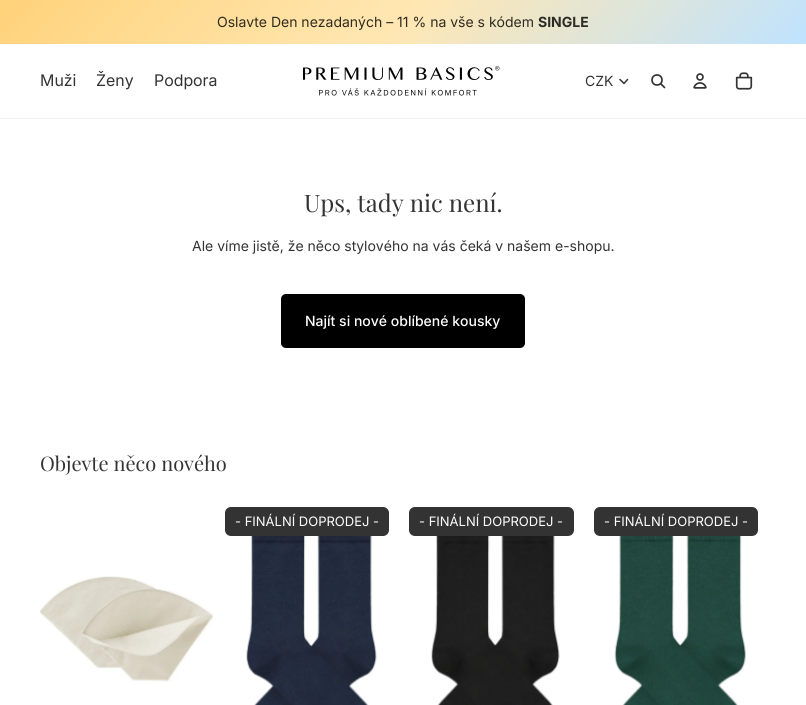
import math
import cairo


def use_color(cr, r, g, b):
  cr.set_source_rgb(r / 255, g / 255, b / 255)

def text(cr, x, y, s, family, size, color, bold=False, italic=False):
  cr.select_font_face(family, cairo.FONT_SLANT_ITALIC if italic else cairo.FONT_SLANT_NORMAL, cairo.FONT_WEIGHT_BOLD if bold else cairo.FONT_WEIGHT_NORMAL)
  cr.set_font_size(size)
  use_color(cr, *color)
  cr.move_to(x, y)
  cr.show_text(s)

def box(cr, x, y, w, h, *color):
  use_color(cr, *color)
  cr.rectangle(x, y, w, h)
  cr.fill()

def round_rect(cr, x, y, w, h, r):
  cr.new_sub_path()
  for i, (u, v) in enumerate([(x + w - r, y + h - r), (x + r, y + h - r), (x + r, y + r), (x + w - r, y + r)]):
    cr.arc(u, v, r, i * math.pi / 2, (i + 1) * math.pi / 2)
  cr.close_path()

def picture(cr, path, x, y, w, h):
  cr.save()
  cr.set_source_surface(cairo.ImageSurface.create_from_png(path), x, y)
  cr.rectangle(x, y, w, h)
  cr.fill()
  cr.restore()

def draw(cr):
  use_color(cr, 255, 255, 255)
  cr.paint()
  gradient = cairo.LinearGradient(190, -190, 616, 235)
  gradient.add_color_stop_rgba(0, 1, 0.824, 0.478, 1)
  gradient.add_color_stop_rgba(0.5, 1, 0.906, 0.702, 1)
  gradient.add_color_stop_rgba(1, 0.749, 0.89, 1, 1)
  cr.set_source(gradient)
  cr.rectangle(0, 0, 806, 44)
  cr.fill()
  box(cr, 0, 118, 806, 1, 240, 240, 240)
  picture(cr, "img_01.png", 303, 66, 197, 30)
  cr.new_path()
  cr.move_to(627.5, 79.5)
  cr.line_to(624, 83.5)
  cr.line_to(620, 79.5)
  use_color(cr, 51, 51, 51)
  cr.set_line_width(1.5)
  cr.set_line_cap(cairo.LINE_CAP_ROUND)
  cr.set_line_join(cairo.LINE_JOIN_ROUND)
  cr.stroke()
  cr.arc(657, 80, 5, 0, 2 * math.pi)
  cr.set_line_width(1.7)
  cr.set_line_cap(cairo.LINE_CAP_BUTT)
  cr.set_line_join(cairo.LINE_JOIN_MITER)
  cr.stroke()
  cr.new_path()
  cr.move_to(661, 84)
  cr.line_to(664.5, 87.5)
  cr.set_line_cap(cairo.LINE_CAP_ROUND)
  cr.set_line_join(cairo.LINE_JOIN_ROUND)
  cr.stroke()
  picture(cr, "img_02.png", 693, 73, 14, 16)
  picture(cr, "img_03.png", 735, 72, 18, 18)
  use_color(cr, 0, 0, 0)
  round_rect(cr, 281, 294, 244, 54, 5)
  cr.fill()
  use_color(cr, 51, 51, 51)
  round_rect(cr, 225, 507, 164, 29, 6)
  cr.fill()
  picture(cr, "img_04.png", 246, 536, 131, 169)
  round_rect(cr, 409, 507, 165, 29, 6)
  cr.fill()
  picture(cr, "img_05.png", 431, 536, 129, 169)
  round_rect(cr, 594, 507, 164, 29, 6)
  cr.fill()
  picture(cr, "img_06.png", 614, 536, 132, 169)
  picture(cr, "img_07.png", 40, 576, 173, 106)
  text(cr, 217, 27, "Oslavte Den nezadaných – 11 % na vše s kódem", "Inter", 14, (48, 43, 33))
  text(cr, 538, 27, "SINGLE", "Inter", 14, (44, 44, 39), bold=True)
  text(cr, 40, 86, "Muži", "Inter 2", 16, (51, 51, 51))
  text(cr, 96, 86, "Ženy", "Inter 2", 16, (51, 51, 51))
  text(cr, 154, 86, "Podpora", "Inter 2", 16, (51, 51, 51))
  text(cr, 585, 86, "CZK", "Inter", 14, (51, 51, 51))
  text(cr, 304, 212, "Ups, tady nic není.", "Playfair Display", 24, (51, 51, 51))
  text(cr, 192, 251, "Ale víme jistě, že něco stylového na vás čeká v našem e-shopu.", "Inter", 14, (51, 51, 51))
  text(cr, 305, 326, "Najít si nové oblíbené kousky", "Inter Medium", 14, (255, 255, 255))
  text(cr, 40, 471, "Objevte něco nového", "Playfair Display", 20, (51, 51, 51))
  text(cr, 235, 526, "- FINÁLNÍ DOPRODEJ -", "Inter", 13, (255, 255, 255))
  text(cr, 419, 526, "- FINÁLNÍ DOPRODEJ -", "Inter", 13, (255, 255, 255))
  text(cr, 604, 526, "- FINÁLNÍ DOPRODEJ -", "Inter", 13, (255, 255, 255))


surface = cairo.ImageSurface(cairo.FORMAT_RGB24, 806, 705)
cr = cairo.Context(surface)
options = cairo.FontOptions()
options.set_hint_metrics(cairo.HINT_METRICS_OFF)
options.set_hint_style(cairo.HINT_STYLE_NONE)
cr.set_font_options(options)
cr.set_miter_limit(4)
draw(cr)
surface.write_to_png("out.png")
